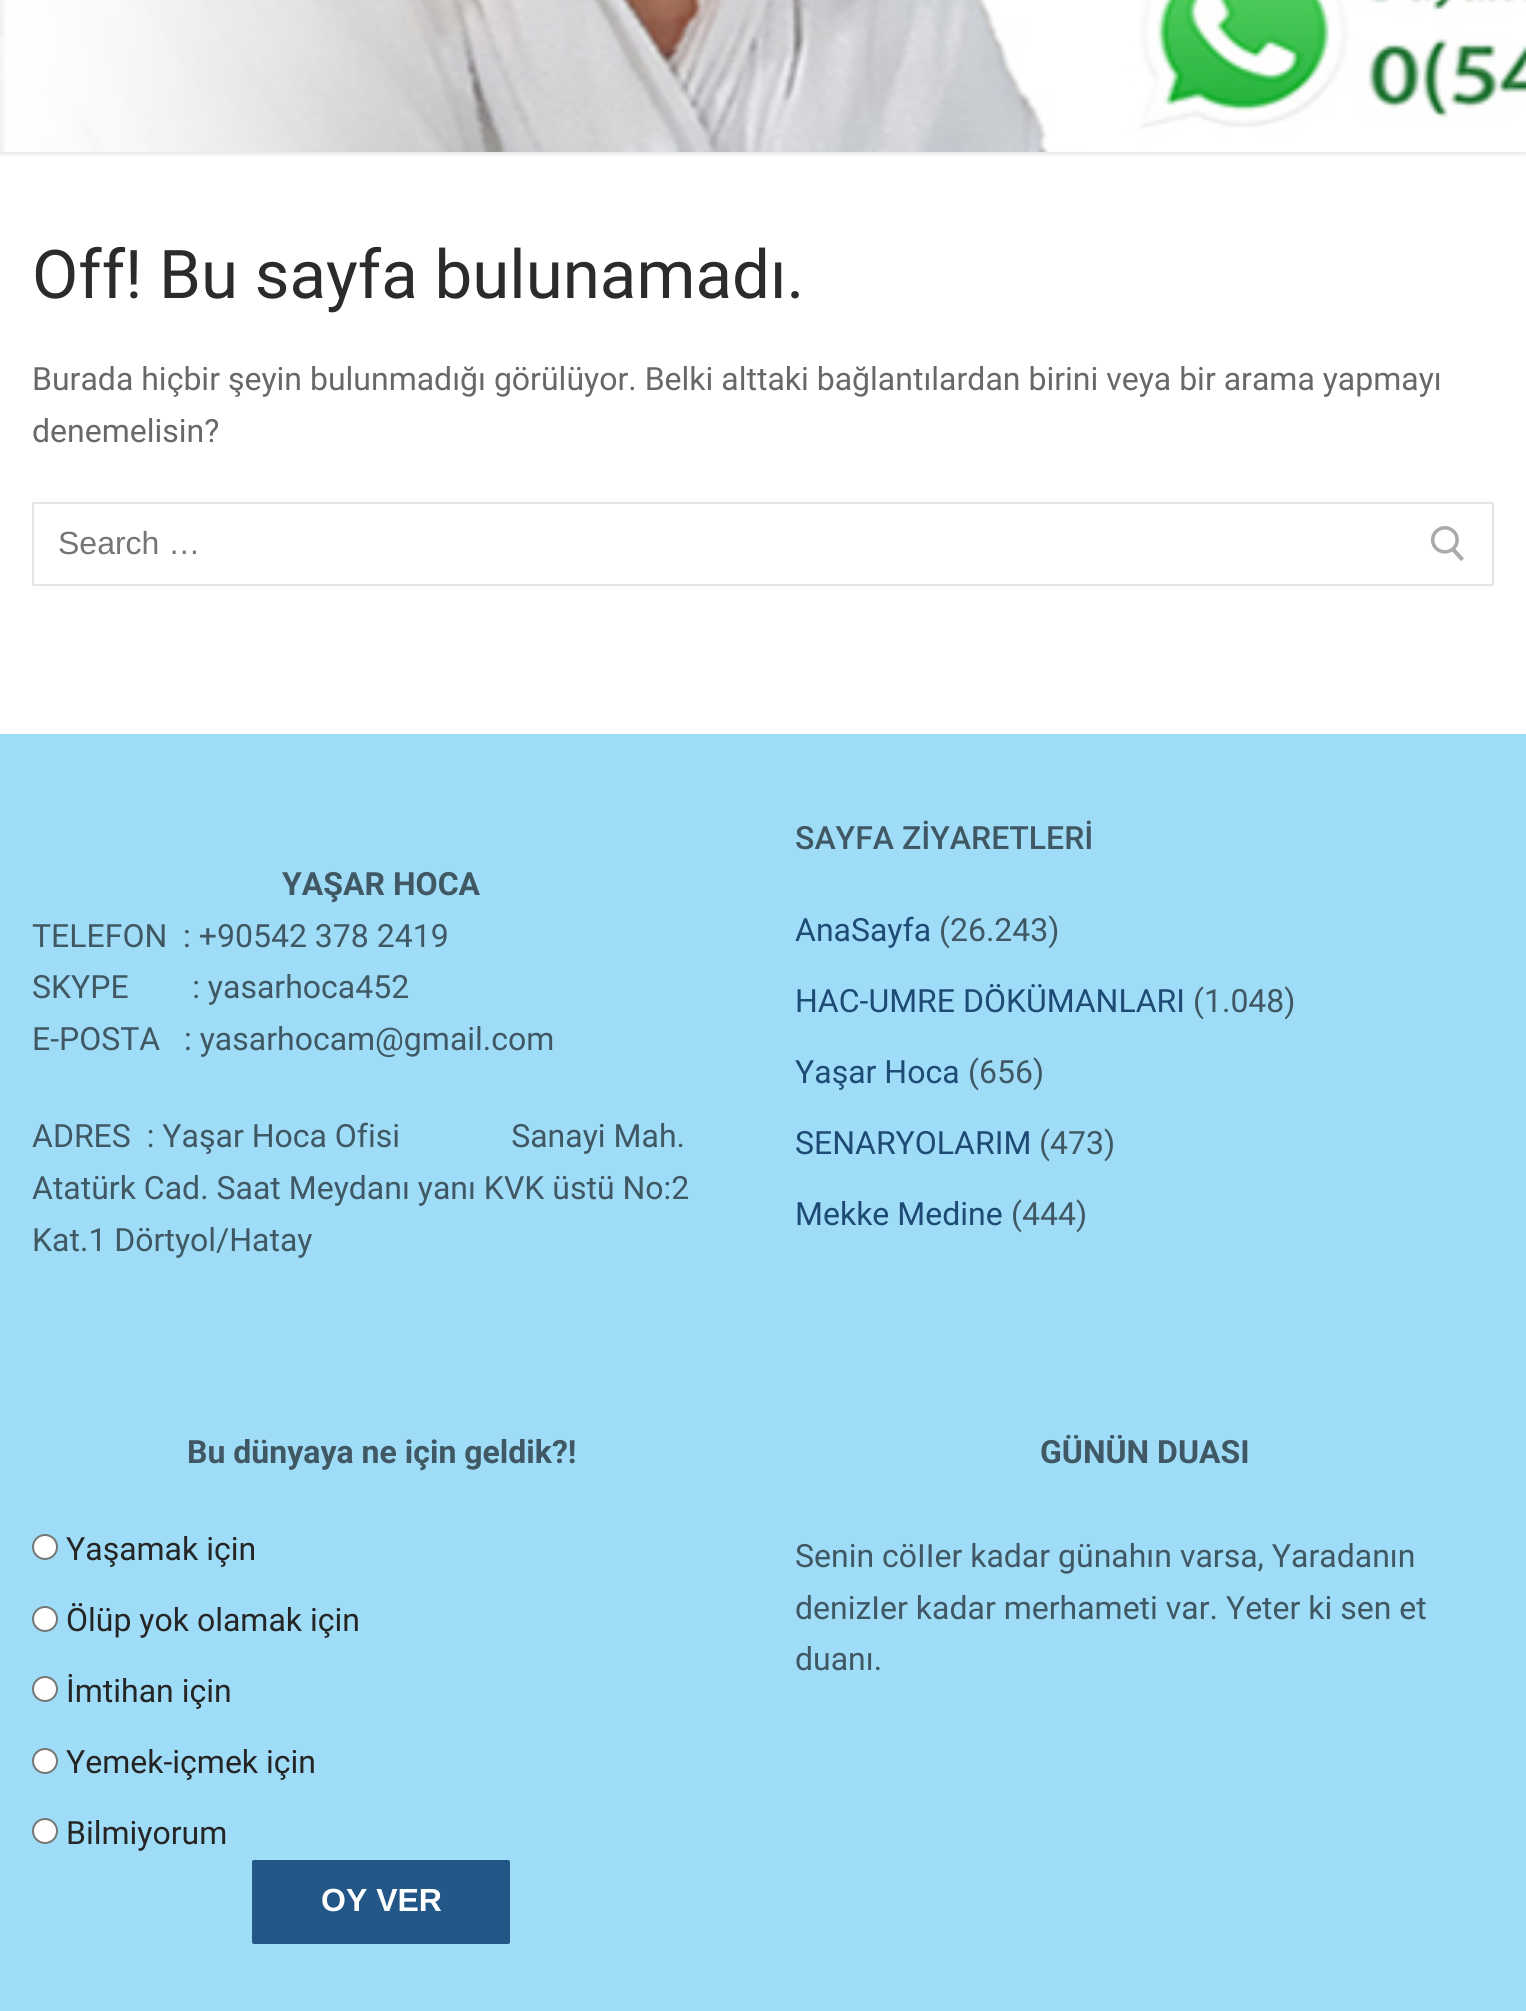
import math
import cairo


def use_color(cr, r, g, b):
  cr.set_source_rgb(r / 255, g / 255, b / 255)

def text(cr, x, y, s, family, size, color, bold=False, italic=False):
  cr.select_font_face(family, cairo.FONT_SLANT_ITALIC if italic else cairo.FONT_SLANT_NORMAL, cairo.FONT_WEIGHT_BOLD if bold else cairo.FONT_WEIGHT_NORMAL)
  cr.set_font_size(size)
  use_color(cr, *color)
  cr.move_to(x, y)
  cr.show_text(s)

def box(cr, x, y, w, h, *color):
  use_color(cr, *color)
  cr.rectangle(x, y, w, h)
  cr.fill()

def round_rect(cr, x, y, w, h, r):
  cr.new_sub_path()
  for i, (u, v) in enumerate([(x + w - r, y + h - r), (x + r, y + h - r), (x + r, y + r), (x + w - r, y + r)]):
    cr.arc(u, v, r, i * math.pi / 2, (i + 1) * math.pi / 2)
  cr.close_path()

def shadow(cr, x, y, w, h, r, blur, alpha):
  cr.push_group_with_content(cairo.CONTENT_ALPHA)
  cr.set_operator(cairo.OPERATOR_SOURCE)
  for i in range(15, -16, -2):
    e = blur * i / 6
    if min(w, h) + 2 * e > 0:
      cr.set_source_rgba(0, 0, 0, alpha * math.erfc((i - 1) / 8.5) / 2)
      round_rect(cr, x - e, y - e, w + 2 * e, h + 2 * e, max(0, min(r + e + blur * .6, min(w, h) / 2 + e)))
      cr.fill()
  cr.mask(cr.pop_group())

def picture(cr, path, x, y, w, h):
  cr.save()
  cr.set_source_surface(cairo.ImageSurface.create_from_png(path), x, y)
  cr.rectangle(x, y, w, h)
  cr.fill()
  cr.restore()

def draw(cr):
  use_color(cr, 255, 255, 255)
  cr.paint()
  use_color(cr, 225, 229, 234)
  shadow(cr, 0, -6, 1526, 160, 0, 2, 1)
  picture(cr, "img_01.png", 0, 0, 1526, 152)
  round_rect(cr, 33, 503, 1460, 82, 1)
  use_color(cr, 229, 229, 229)
  cr.stroke()
  picture(cr, "img_02.png", 1430, 526, 34, 35)
  box(cr, 0, 734, 1526, 1277, 159, 220, 247)
  use_color(cr, 255, 255, 255)
  cr.arc(45, 1547, 12, 0, 2 * math.pi)
  cr.fill_preserve()
  use_color(cr, 118, 118, 118)
  cr.stroke()
  use_color(cr, 255, 255, 255)
  cr.arc(45, 1619, 12, 0, 2 * math.pi)
  cr.fill_preserve()
  use_color(cr, 118, 118, 118)
  cr.stroke()
  use_color(cr, 255, 255, 255)
  cr.arc(45, 1689, 12, 0, 2 * math.pi)
  cr.fill_preserve()
  use_color(cr, 118, 118, 118)
  cr.stroke()
  use_color(cr, 255, 255, 255)
  cr.arc(45, 1761, 12, 0, 2 * math.pi)
  cr.fill_preserve()
  use_color(cr, 118, 118, 118)
  cr.stroke()
  use_color(cr, 255, 255, 255)
  cr.arc(45, 1831, 12, 0, 2 * math.pi)
  cr.fill_preserve()
  use_color(cr, 118, 118, 118)
  cr.stroke()
  use_color(cr, 35, 87, 135)
  round_rect(cr, 252, 1860, 258, 84, 2)
  cr.fill()
  text(cr, 32, 298, "Off! Bu sayfa bulunamadı.", "Roboto", 67.25, (43, 43, 43))
  text(cr, 32, 390, "Burada hiçbir şeyin bulunmadığı görülüyor. Belki alttaki bağlantılardan birini veya bir arama yapmayı", "Roboto", 32, (104, 104, 104))
  text(cr, 32, 442, "denemelisin?", "Roboto", 32, (104, 104, 104))
  text(cr, 58, 554, "Search …", "Liberation Sans", 32, (117, 117, 117))
  text(cr, 282, 895, "YAŞAR HOCA", "Roboto", 32, (64, 88, 99), bold=True)
  text(cr, 32, 947, "TELEFON  : +90542 378 2419", "Roboto", 32, (64, 88, 99))
  text(cr, 32, 998, "SKYPE        : yasarhoca452", "Roboto", 32, (64, 88, 99))
  text(cr, 32, 1050, "E-POSTA   : yasarhocam@gmail.com", "Roboto", 32, (64, 88, 99))
  text(cr, 32, 1147, "ADRES  : Yaşar Hoca Ofisi              Sanayi Mah.", "Roboto", 32, (64, 88, 99))
  text(cr, 32, 1199, "Atatürk Cad. Saat Meydanı yanı KVK üstü No:2", "Roboto", 32, (64, 88, 99))
  text(cr, 32, 1251, "Kat.1 Dörtyol/Hatay", "Roboto", 32, (64, 88, 99))
  text(cr, 795, 849, "SAYFA ZİYARETLERİ", "Roboto Medium", 32, (64, 88, 99))
  text(cr, 795, 941, "AnaSayfa", "Roboto", 32, (30, 75, 117))
  text(cr, 939, 941, "(26.243)", "Roboto", 32, (64, 88, 99))
  text(cr, 795, 1012, "HAC-UMRE DÖKÜMANLARI", "Roboto", 32, (30, 75, 117))
  text(cr, 1193, 1012, "(1.048)", "Roboto", 32, (64, 88, 99))
  text(cr, 795, 1083, "Yaşar Hoca", "Roboto", 32, (30, 75, 117))
  text(cr, 968, 1083, "(656)", "Roboto", 32, (64, 88, 99))
  text(cr, 795, 1154, "SENARYOLARIM", "Roboto", 32, (30, 75, 117))
  text(cr, 1039, 1154, "(473)", "Roboto", 32, (64, 88, 99))
  text(cr, 795, 1225, "Mekke Medine", "Roboto", 32, (30, 75, 117))
  text(cr, 1011, 1225, "(444)", "Roboto", 32, (64, 88, 99))
  text(cr, 187, 1463, "Bu dünyaya ne için geldik?!", "Roboto", 32, (64, 88, 99), bold=True)
  text(cr, 66, 1560, "Yaşamak için", "Roboto", 32, (37, 37, 37))
  text(cr, 66, 1631, "Ölüp yok olamak için", "Roboto", 32, (37, 37, 37))
  text(cr, 66, 1702, "İmtihan için", "Roboto", 32, (37, 37, 37))
  text(cr, 66, 1773, "Yemek-içmek için", "Roboto", 32, (37, 37, 37))
  text(cr, 66, 1844, "Bilmiyorum", "Roboto", 32, (37, 37, 37))
  text(cr, 321, 1911, "OY VER", "Liberation Sans", 32, (255, 255, 255), bold=True)
  text(cr, 1040, 1463, "GÜNÜN DUASI", "Roboto", 32, (64, 88, 99), bold=True)
  text(cr, 795, 1567, "Senin cöIIer kadar günahın varsa, Yaradanın", "Roboto", 32, (64, 88, 99))
  text(cr, 795, 1619, "denizIer kadar merhameti var. Yeter ki sen et", "Roboto", 32, (64, 88, 99))
  text(cr, 795, 1670, "duanı.", "Roboto", 32, (64, 88, 99))


surface = cairo.ImageSurface(cairo.FORMAT_RGB24, 1526, 2011)
cr = cairo.Context(surface)
options = cairo.FontOptions()
options.set_hint_metrics(cairo.HINT_METRICS_OFF)
options.set_hint_style(cairo.HINT_STYLE_NONE)
cr.set_font_options(options)
cr.set_miter_limit(4)
draw(cr)
surface.write_to_png("out.png")
